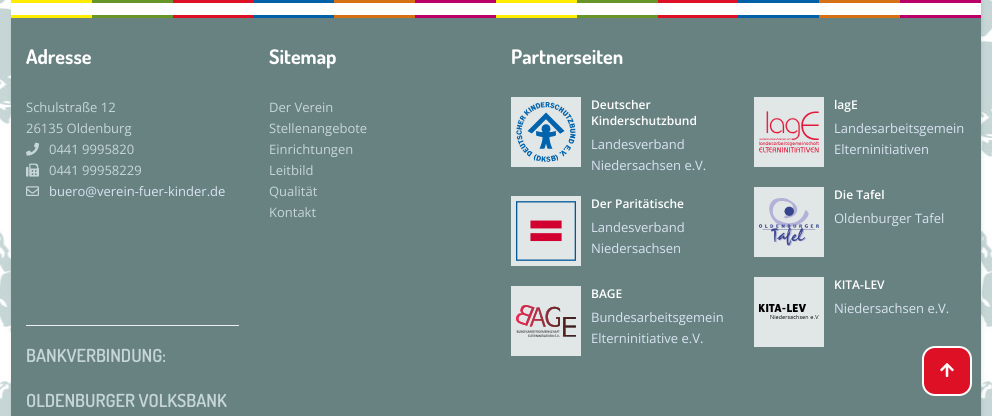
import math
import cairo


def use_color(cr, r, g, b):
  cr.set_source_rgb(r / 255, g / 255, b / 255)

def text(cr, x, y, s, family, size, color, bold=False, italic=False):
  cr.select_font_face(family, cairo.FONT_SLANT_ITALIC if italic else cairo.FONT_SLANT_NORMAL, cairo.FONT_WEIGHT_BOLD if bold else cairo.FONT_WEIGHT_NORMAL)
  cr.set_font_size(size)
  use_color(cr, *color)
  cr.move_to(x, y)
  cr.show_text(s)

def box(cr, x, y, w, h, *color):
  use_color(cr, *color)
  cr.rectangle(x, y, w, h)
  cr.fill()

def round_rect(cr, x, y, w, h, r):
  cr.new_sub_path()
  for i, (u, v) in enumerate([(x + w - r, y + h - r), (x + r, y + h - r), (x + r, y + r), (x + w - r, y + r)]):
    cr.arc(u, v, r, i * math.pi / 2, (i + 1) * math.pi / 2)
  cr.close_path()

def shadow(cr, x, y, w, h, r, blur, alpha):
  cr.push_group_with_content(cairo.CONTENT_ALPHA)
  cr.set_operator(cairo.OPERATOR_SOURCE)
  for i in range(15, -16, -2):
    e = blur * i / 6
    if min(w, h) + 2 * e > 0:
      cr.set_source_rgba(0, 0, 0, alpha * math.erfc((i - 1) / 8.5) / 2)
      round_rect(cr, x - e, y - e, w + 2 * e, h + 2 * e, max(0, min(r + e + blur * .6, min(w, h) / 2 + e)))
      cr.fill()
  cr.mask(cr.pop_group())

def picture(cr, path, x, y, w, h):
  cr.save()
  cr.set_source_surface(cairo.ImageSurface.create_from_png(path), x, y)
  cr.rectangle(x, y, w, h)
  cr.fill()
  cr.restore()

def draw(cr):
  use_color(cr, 255, 255, 255)
  cr.paint()
  picture(cr, "img_01.png", 0, 0, 992, 416)
  use_color(cr, 0, 0, 0)
  shadow(cr, 12, -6, 970, 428, 0, 2, 0.1)
  box(cr, 11, 3, 970, 12, 255, 255, 255)
  box(cr, 11, 0, 81, 3, 255, 236, 0)
  box(cr, 92, 0, 81, 3, 103, 149, 39)
  box(cr, 173, 0, 80, 3, 222, 16, 37)
  box(cr, 253, 0, 81, 3, 0, 97, 168)
  box(cr, 334, 0, 81, 3, 214, 112, 21)
  box(cr, 415, 0, 81, 3, 186, 0, 102)
  box(cr, 496, 0, 81, 3, 255, 236, 0)
  box(cr, 577, 0, 81, 3, 103, 149, 39)
  box(cr, 658, 0, 80, 3, 222, 16, 37)
  box(cr, 738, 0, 81, 3, 0, 97, 168)
  box(cr, 819, 0, 81, 3, 214, 112, 21)
  box(cr, 900, 0, 81, 3, 186, 0, 102)
  box(cr, 11, 15, 81, 3, 255, 236, 0)
  box(cr, 92, 15, 81, 3, 103, 149, 39)
  box(cr, 173, 15, 80, 3, 222, 16, 37)
  box(cr, 253, 15, 81, 3, 0, 97, 168)
  box(cr, 334, 15, 81, 3, 214, 112, 21)
  box(cr, 415, 15, 81, 3, 186, 0, 102)
  box(cr, 496, 15, 81, 3, 255, 236, 0)
  box(cr, 577, 15, 81, 3, 103, 149, 39)
  box(cr, 658, 15, 80, 3, 222, 16, 37)
  box(cr, 738, 15, 81, 3, 0, 97, 168)
  box(cr, 819, 15, 81, 3, 214, 112, 21)
  box(cr, 900, 15, 81, 3, 186, 0, 102)
  box(cr, 11, 18, 970, 398, 104, 130, 130)
  picture(cr, "img_02.png", 26, 142, 13, 14)
  picture(cr, "img_03.png", 26, 163, 13, 14)
  picture(cr, "img_04.png", 26, 186, 13, 10)
  box(cr, 26, 325, 213, 1, 238, 238, 238)
  box(cr, 511, 97, 70, 70, 225, 230, 230)
  picture(cr, "img_05.png", 516, 102, 60, 60)
  box(cr, 511, 196, 70, 70, 225, 230, 230)
  picture(cr, "img_06.png", 516, 201, 60, 60)
  box(cr, 511, 286, 70, 70, 225, 230, 230)
  picture(cr, "img_07.png", 516, 305, 60, 32)
  box(cr, 754, 97, 70, 70, 225, 230, 230)
  picture(cr, "img_08.png", 759, 111, 60, 42)
  box(cr, 754, 187, 70, 70, 225, 230, 230)
  picture(cr, "img_09.png", 759, 198, 60, 48)
  box(cr, 754, 277, 70, 70, 225, 230, 230)
  picture(cr, "img_10.png", 759, 304, 60, 15)
  use_color(cr, 222, 16, 37)
  round_rect(cr, 923, 347, 48, 48, 12)
  cr.fill_preserve()
  use_color(cr, 255, 255, 255)
  cr.stroke()
  picture(cr, "img_11.png", 940, 363, 14, 14)
  text(cr, 26, 64, "Adresse", "Dosis", 20, (255, 255, 255), bold=True)
  text(cr, 26, 112, "Schulstraße 12", "Open Sans", 13, (198, 214, 214))
  text(cr, 26, 133, "26135 Oldenburg", "Open Sans", 13, (198, 214, 214))
  text(cr, 49, 154, "0441 9995820", "Open Sans", 13, (198, 214, 214))
  text(cr, 49, 175, "0441 99958229", "Open Sans", 13, (198, 214, 214))
  text(cr, 49, 196, "buero@verein-fuer-kinder.de", "Open Sans", 13, (216, 227, 240))
  text(cr, 26, 362, "BANKVERBINDUNG:", "Dosis SemiBold", 18, (198, 214, 214))
  text(cr, 26, 407, "OLDENBURGER VOLKSBANK", "Dosis SemiBold", 18, (198, 214, 214))
  text(cr, 269, 64, "Sitemap", "Dosis", 20, (255, 255, 255), bold=True)
  text(cr, 269, 112, "Der Verein", "Open Sans", 13, (198, 214, 214))
  text(cr, 269, 133, "Stellenangebote", "Open Sans", 13, (198, 214, 214))
  text(cr, 269, 154, "Einrichtungen", "Open Sans", 13, (198, 214, 214))
  text(cr, 269, 175, "Leitbild", "Open Sans", 13, (198, 214, 214))
  text(cr, 269, 196, "Qualität", "Open Sans", 13, (198, 214, 214))
  text(cr, 269, 217, "Kontakt", "Open Sans", 13, (198, 214, 214))
  text(cr, 511, 64, "Partnerseiten", "Dosis", 20, (255, 255, 255), bold=True)
  text(cr, 591, 109, "Deutscher", "Open Sans SemiBold", 12, (255, 255, 255))
  text(cr, 591, 125, "Kinderschutzbund", "Open Sans SemiBold", 12, (255, 255, 255))
  text(cr, 591, 149, "Landesverband", "Open Sans", 13, (216, 227, 240))
  text(cr, 591, 170, "Niedersachsen e.V.", "Open Sans", 13, (216, 227, 240))
  text(cr, 591, 208, "Der Paritätische", "Open Sans SemiBold", 12, (255, 255, 255))
  text(cr, 591, 232, "Landesverband", "Open Sans", 13, (216, 227, 240))
  text(cr, 591, 253, "Niedersachsen", "Open Sans", 13, (216, 227, 240))
  text(cr, 591, 298, "BAGE", "Open Sans SemiBold", 12, (255, 255, 255))
  text(cr, 591, 322, "Bundesarbeitsgemein", "Open Sans", 13, (216, 227, 240))
  text(cr, 591, 343, "Elterninitiative e.V.", "Open Sans", 13, (216, 227, 240))
  text(cr, 834, 109, "lagE", "Open Sans SemiBold", 12, (255, 255, 255))
  text(cr, 834, 133, "Landesarbeitsgemein", "Open Sans", 13, (216, 227, 240))
  text(cr, 834, 154, "Elterninitiativen", "Open Sans", 13, (216, 227, 240))
  text(cr, 834, 199, "Die Tafel", "Open Sans SemiBold", 12, (255, 255, 255))
  text(cr, 834, 223, "Oldenburger Tafel", "Open Sans", 13, (216, 227, 240))
  text(cr, 834, 289, "KITA-LEV", "Open Sans SemiBold", 12, (255, 255, 255))
  text(cr, 834, 313, "Niedersachsen e.V.", "Open Sans", 13, (216, 227, 240))


surface = cairo.ImageSurface(cairo.FORMAT_RGB24, 992, 416)
cr = cairo.Context(surface)
options = cairo.FontOptions()
options.set_hint_metrics(cairo.HINT_METRICS_OFF)
options.set_hint_style(cairo.HINT_STYLE_NONE)
cr.set_font_options(options)
cr.set_miter_limit(4)
draw(cr)
surface.write_to_png("out.png")
